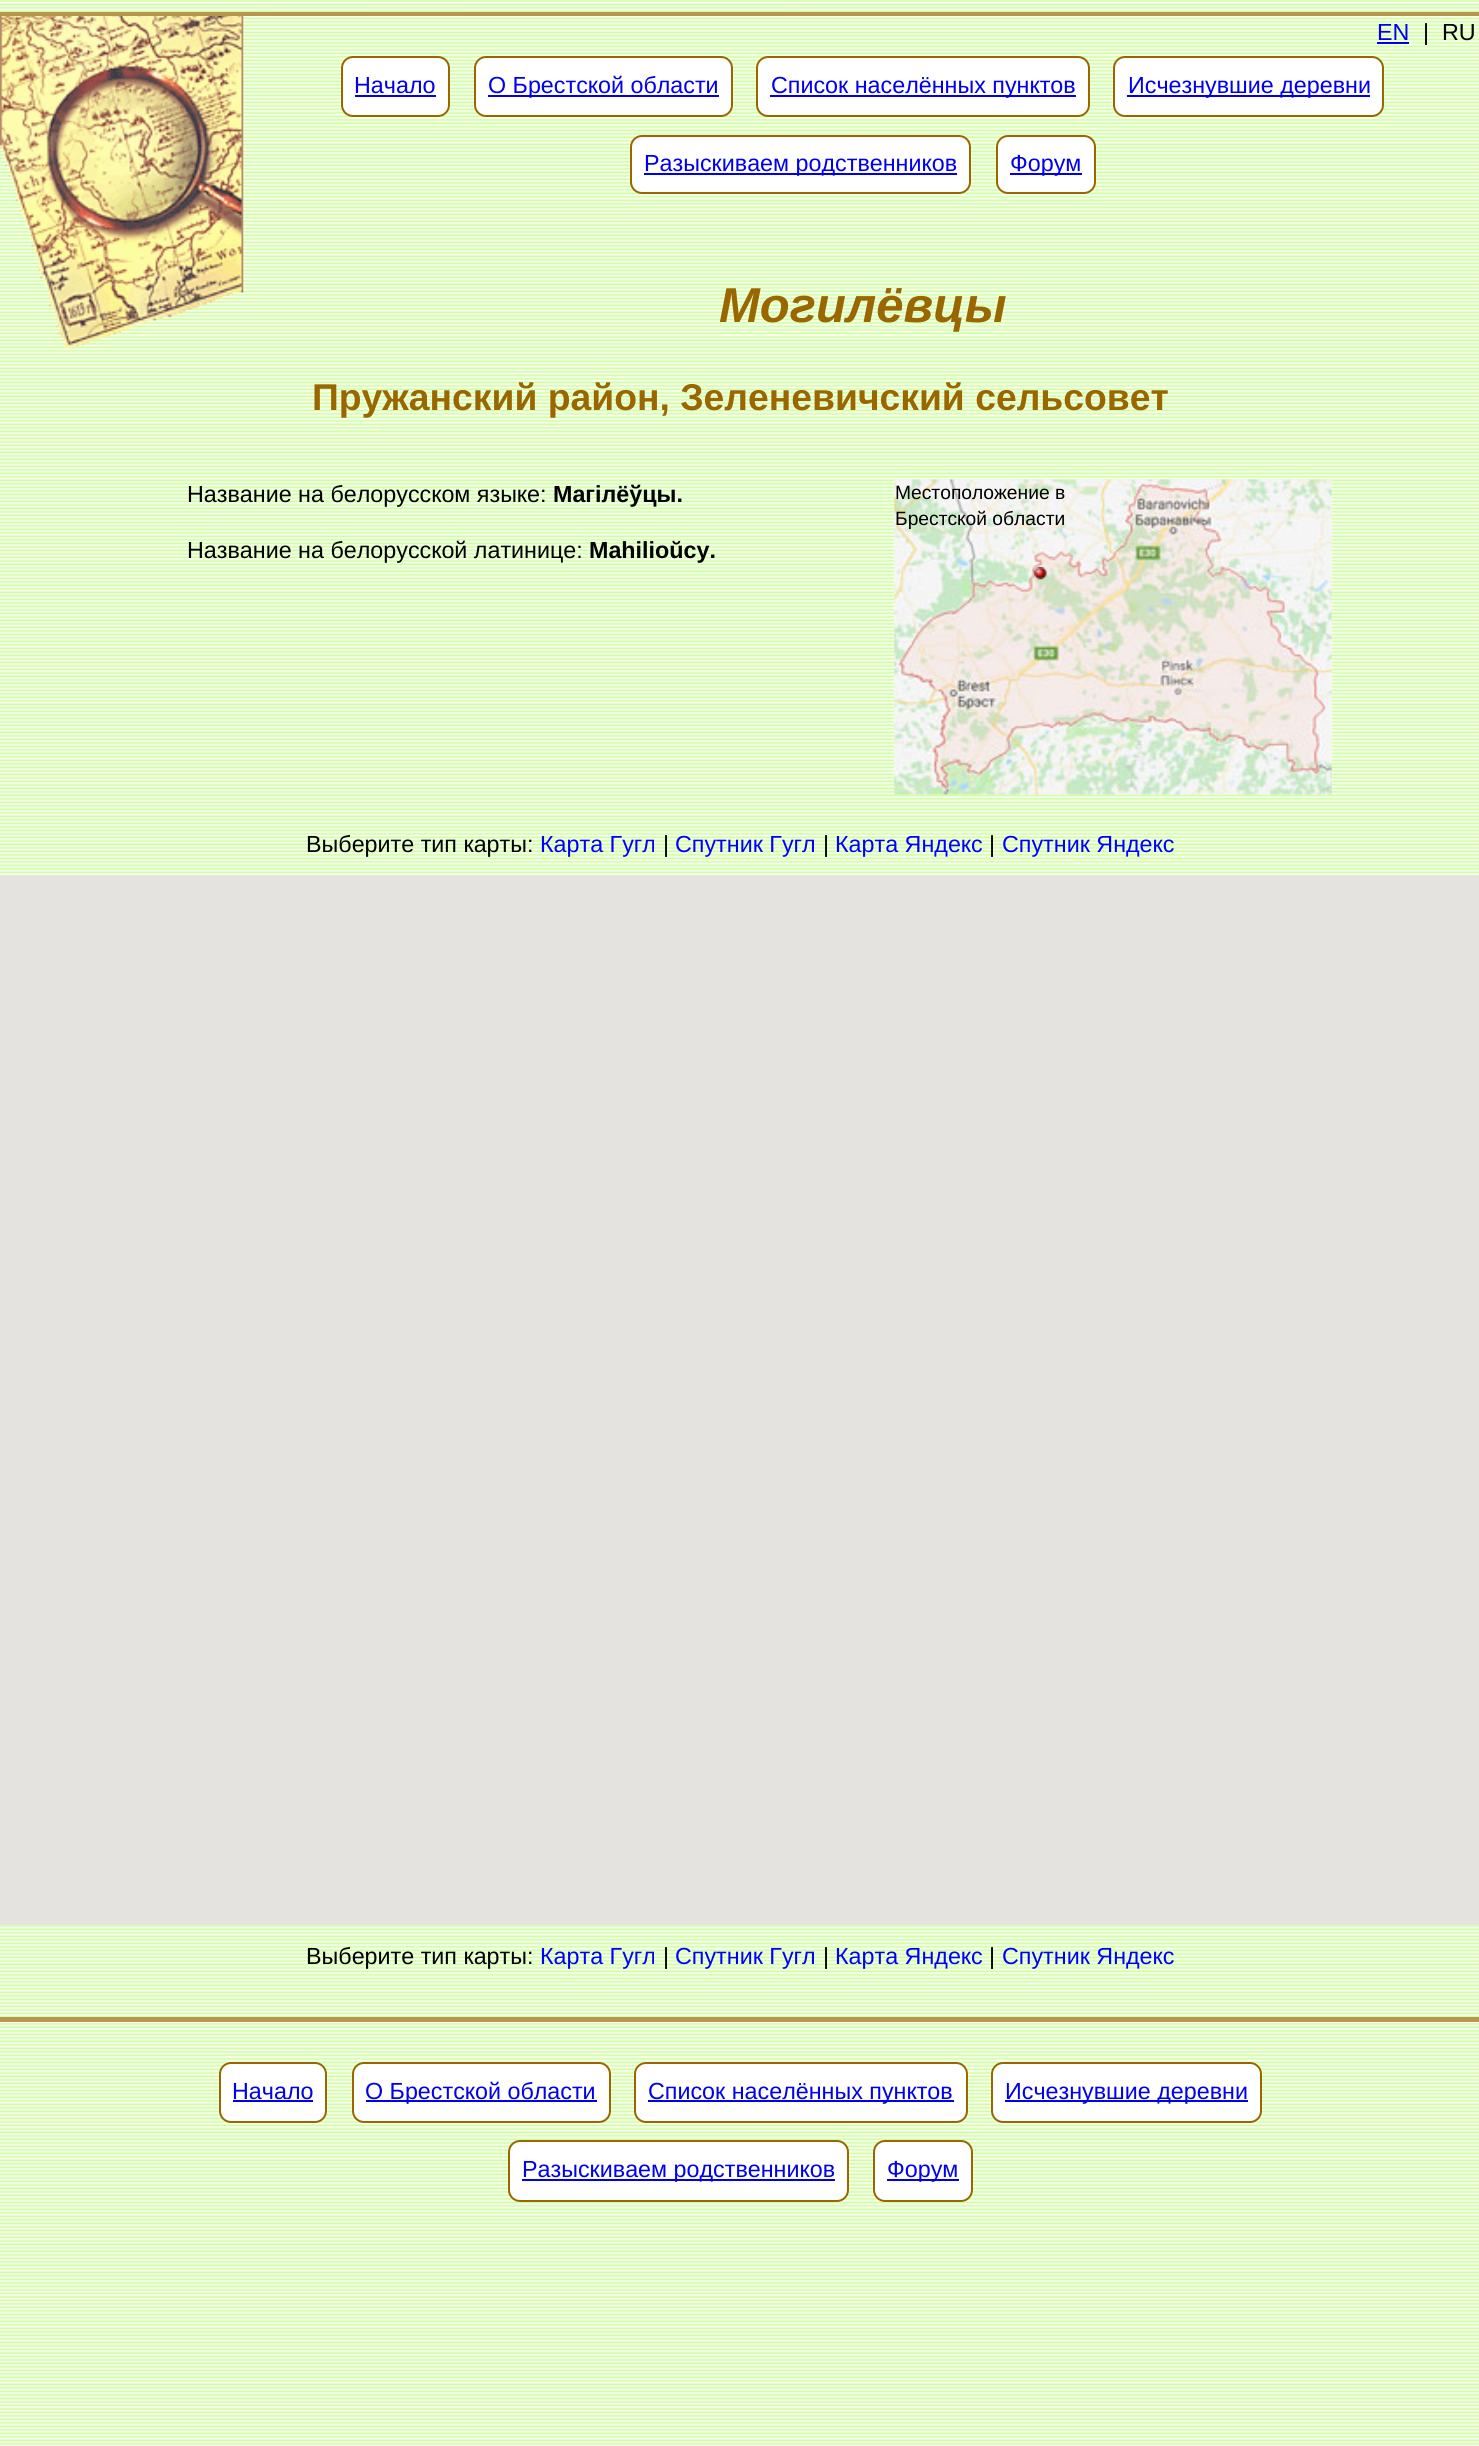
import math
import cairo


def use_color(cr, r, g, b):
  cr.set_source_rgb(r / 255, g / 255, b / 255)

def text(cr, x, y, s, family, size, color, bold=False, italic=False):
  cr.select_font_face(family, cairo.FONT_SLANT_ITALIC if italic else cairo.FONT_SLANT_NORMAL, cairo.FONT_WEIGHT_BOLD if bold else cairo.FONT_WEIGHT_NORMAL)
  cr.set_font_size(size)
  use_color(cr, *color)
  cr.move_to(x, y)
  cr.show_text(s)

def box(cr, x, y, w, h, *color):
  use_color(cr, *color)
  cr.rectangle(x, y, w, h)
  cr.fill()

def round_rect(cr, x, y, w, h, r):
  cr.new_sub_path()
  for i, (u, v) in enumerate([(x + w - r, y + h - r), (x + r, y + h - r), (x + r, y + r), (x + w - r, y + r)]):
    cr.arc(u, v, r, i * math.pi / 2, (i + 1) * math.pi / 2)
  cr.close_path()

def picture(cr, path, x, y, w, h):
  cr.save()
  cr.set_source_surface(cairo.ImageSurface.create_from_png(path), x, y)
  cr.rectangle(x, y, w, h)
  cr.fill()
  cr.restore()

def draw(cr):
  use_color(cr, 255, 255, 255)
  cr.paint()
  picture(cr, "img_01.png", 0, 0, 1479, 2446)
  picture(cr, "img_02.png", 0, 16, 244, 333)
  box(cr, 1377, 42, 32, 2, 0, 0, 238)
  box(cr, 0, 12, 1479, 4, 185, 149, 79)
  use_color(cr, 255, 255, 255)
  round_rect(cr, 342, 57, 107, 59, 11)
  cr.fill_preserve()
  use_color(cr, 153, 102, 0)
  cr.stroke()
  box(cr, 355, 95, 81, 2, 0, 0, 238)
  use_color(cr, 255, 255, 255)
  round_rect(cr, 475, 57, 257, 59, 11)
  cr.fill_preserve()
  use_color(cr, 153, 102, 0)
  cr.stroke()
  box(cr, 488, 95, 231, 2, 0, 0, 238)
  use_color(cr, 255, 255, 255)
  round_rect(cr, 757, 57, 332, 59, 11)
  cr.fill_preserve()
  use_color(cr, 153, 102, 0)
  cr.stroke()
  box(cr, 770, 95, 306, 2, 0, 0, 238)
  use_color(cr, 255, 255, 255)
  round_rect(cr, 1114, 57, 269, 59, 11)
  cr.fill_preserve()
  use_color(cr, 153, 102, 0)
  cr.stroke()
  box(cr, 1127, 95, 243, 2, 0, 0, 238)
  use_color(cr, 255, 255, 255)
  round_rect(cr, 631, 136, 339, 57, 11)
  cr.fill_preserve()
  use_color(cr, 153, 102, 0)
  cr.stroke()
  box(cr, 644, 173, 313, 2, 0, 0, 238)
  use_color(cr, 255, 255, 255)
  round_rect(cr, 997, 136, 98, 57, 11)
  cr.fill_preserve()
  use_color(cr, 153, 102, 0)
  cr.stroke()
  box(cr, 1010, 173, 72, 2, 0, 0, 238)
  picture(cr, "img_03.png", 894, 479, 438, 316)
  picture(cr, "img_04.png", 1034, 567, 13, 13)
  box(cr, 0, 875, 1479, 1050, 229, 227, 223)
  box(cr, 0, 2017, 1479, 5, 185, 149, 79)
  use_color(cr, 255, 255, 255)
  round_rect(cr, 220, 2063, 106, 59, 11)
  cr.fill_preserve()
  use_color(cr, 153, 102, 0)
  cr.stroke()
  box(cr, 233, 2100, 80, 2, 0, 0, 238)
  use_color(cr, 255, 255, 255)
  round_rect(cr, 353, 2063, 257, 59, 11)
  cr.fill_preserve()
  use_color(cr, 153, 102, 0)
  cr.stroke()
  box(cr, 366, 2100, 231, 2, 0, 0, 238)
  use_color(cr, 255, 255, 255)
  round_rect(cr, 635, 2063, 332, 59, 11)
  cr.fill_preserve()
  use_color(cr, 153, 102, 0)
  cr.stroke()
  box(cr, 648, 2100, 306, 2, 0, 0, 238)
  use_color(cr, 255, 255, 255)
  round_rect(cr, 992, 2063, 269, 59, 11)
  cr.fill_preserve()
  use_color(cr, 153, 102, 0)
  cr.stroke()
  box(cr, 1005, 2100, 243, 2, 0, 0, 238)
  use_color(cr, 255, 255, 255)
  round_rect(cr, 509, 2141, 339, 60, 11)
  cr.fill_preserve()
  use_color(cr, 153, 102, 0)
  cr.stroke()
  box(cr, 522, 2179, 313, 2, 0, 0, 238)
  use_color(cr, 255, 255, 255)
  round_rect(cr, 874, 2141, 98, 60, 11)
  cr.fill_preserve()
  use_color(cr, 153, 102, 0)
  cr.stroke()
  box(cr, 887, 2179, 72, 2, 0, 0, 238)
  text(cr, 1377, 40, "EN", "Liberation Sans", 23.3, (0, 0, 238))
  text(cr, 1423, 40, "|  RU", "Liberation Sans", 23.3, (0, 0, 0))
  text(cr, 354, 93, "Начало", "Liberation Sans", 23.3, (0, 0, 238))
  text(cr, 488, 93, "О Брестской области", "Liberation Sans", 23.3, (0, 0, 238))
  text(cr, 771, 93, "Список населённых пунктов", "Liberation Sans", 23.3, (0, 0, 238))
  text(cr, 1128, 93, "Исчезнувшие деревни", "Liberation Sans", 23.3, (0, 0, 238))
  text(cr, 644, 171, "Разыскиваем родственников", "Liberation Sans", 23.3, (0, 0, 238))
  text(cr, 1010, 171, "Форум", "Liberation Sans", 23.3, (0, 0, 238))
  text(cr, 719, 322, "Могилёвцы", "Liberation Sans", 49, (153, 102, 0), bold=True, italic=True)
  text(cr, 312, 410, "Пружанский район, Зеленевичский сельсовет", "Liberation Sans", 37.3, (153, 102, 0), bold=True)
  text(cr, 187, 502, "Название на белорусском языке:", "Liberation Sans", 23.3, (0, 0, 0))
  text(cr, 553, 502, "Магілёўцы.", "Liberation Sans", 23.3, (0, 0, 0), bold=True)
  text(cr, 895, 499, "Местоположение в", "Liberation Sans", 19.25, (0, 0, 0))
  text(cr, 895, 525, "Брестской области", "Liberation Sans", 19.25, (0, 0, 0))
  text(cr, 187, 558, "Название на белорусской латинице:", "Liberation Sans", 23.3, (0, 0, 0))
  text(cr, 589, 558, "Mahilioŭcy.", "Liberation Sans", 23.3, (0, 0, 0), bold=True)
  text(cr, 306, 852, "Выберите тип карты:", "Liberation Sans", 23.3, (0, 0, 0))
  text(cr, 540, 852, "Карта Гугл", "Liberation Sans", 23.3, (0, 0, 255))
  text(cr, 663, 852, "|", "Liberation Sans", 23.3, (0, 0, 0))
  text(cr, 675, 852, "Спутник Гугл", "Liberation Sans", 23.3, (0, 0, 255))
  text(cr, 823, 852, "|", "Liberation Sans", 23.3, (0, 0, 0))
  text(cr, 835, 852, "Карта Яндекс", "Liberation Sans", 23.3, (0, 0, 255))
  text(cr, 989, 852, "|", "Liberation Sans", 23.3, (0, 0, 0))
  text(cr, 1002, 852, "Спутник Яндекс", "Liberation Sans", 23.3, (0, 0, 255))
  text(cr, 306, 1964, "Выберите тип карты:", "Liberation Sans", 23.3, (0, 0, 0))
  text(cr, 540, 1964, "Карта Гугл", "Liberation Sans", 23.3, (0, 0, 255))
  text(cr, 663, 1964, "|", "Liberation Sans", 23.3, (0, 0, 0))
  text(cr, 675, 1964, "Спутник Гугл", "Liberation Sans", 23.3, (0, 0, 255))
  text(cr, 823, 1964, "|", "Liberation Sans", 23.3, (0, 0, 0))
  text(cr, 835, 1964, "Карта Яндекс", "Liberation Sans", 23.3, (0, 0, 255))
  text(cr, 989, 1964, "|", "Liberation Sans", 23.3, (0, 0, 0))
  text(cr, 1002, 1964, "Спутник Яндекс", "Liberation Sans", 23.3, (0, 0, 255))
  text(cr, 232, 2099, "Начало", "Liberation Sans", 23.3, (0, 0, 238))
  text(cr, 365, 2099, "О Брестской области", "Liberation Sans", 23.3, (0, 0, 238))
  text(cr, 648, 2099, "Список населённых пунктов", "Liberation Sans", 23.3, (0, 0, 238))
  text(cr, 1005, 2099, "Исчезнувшие деревни", "Liberation Sans", 23.3, (0, 0, 238))
  text(cr, 522, 2177, "Разыскиваем родственников", "Liberation Sans", 23.3, (0, 0, 238))
  text(cr, 887, 2177, "Форум", "Liberation Sans", 23.3, (0, 0, 238))


surface = cairo.ImageSurface(cairo.FORMAT_RGB24, 1479, 2446)
cr = cairo.Context(surface)
options = cairo.FontOptions()
options.set_hint_metrics(cairo.HINT_METRICS_OFF)
options.set_hint_style(cairo.HINT_STYLE_NONE)
cr.set_font_options(options)
cr.set_miter_limit(4)
draw(cr)
surface.write_to_png("out.png")
